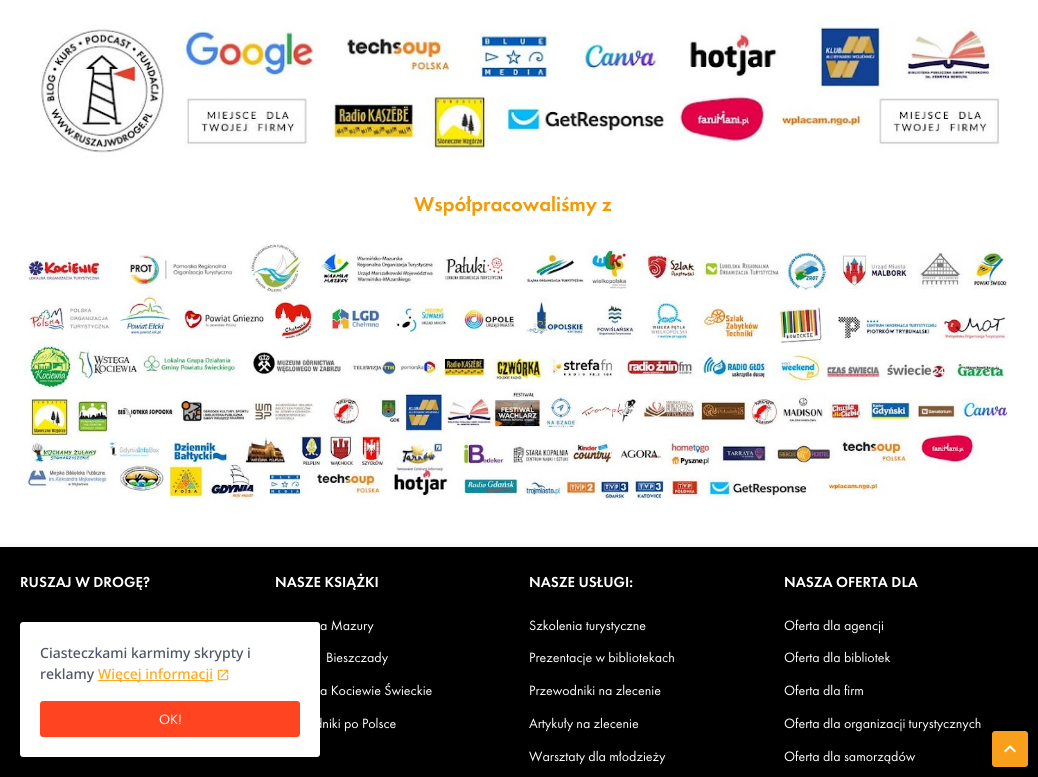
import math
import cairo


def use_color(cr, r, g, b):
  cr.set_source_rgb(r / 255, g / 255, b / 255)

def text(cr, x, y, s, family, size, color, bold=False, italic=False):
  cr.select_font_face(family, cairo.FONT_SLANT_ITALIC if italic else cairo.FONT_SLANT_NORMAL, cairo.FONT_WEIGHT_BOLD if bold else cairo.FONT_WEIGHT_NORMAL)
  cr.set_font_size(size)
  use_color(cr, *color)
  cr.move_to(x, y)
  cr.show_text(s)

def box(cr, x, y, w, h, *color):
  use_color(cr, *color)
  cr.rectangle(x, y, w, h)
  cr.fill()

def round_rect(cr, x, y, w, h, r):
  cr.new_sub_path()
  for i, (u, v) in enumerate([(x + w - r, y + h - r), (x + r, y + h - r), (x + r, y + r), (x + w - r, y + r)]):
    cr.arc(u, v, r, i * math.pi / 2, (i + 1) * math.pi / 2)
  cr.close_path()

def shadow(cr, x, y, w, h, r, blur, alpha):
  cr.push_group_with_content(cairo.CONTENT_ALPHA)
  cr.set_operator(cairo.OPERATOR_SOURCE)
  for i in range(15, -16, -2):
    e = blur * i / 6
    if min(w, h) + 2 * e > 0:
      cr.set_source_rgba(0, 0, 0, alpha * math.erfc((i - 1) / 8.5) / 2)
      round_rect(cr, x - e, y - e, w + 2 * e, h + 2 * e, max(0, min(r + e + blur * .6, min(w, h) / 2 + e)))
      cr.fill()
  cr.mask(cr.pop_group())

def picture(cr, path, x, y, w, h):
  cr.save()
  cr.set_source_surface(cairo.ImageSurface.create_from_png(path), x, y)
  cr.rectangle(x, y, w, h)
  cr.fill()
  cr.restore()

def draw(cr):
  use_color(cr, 255, 255, 255)
  cr.paint()
  picture(cr, "img_01.png", 40, 20, 960, 138)
  picture(cr, "img_02.png", 20, 244, 988, 260)
  use_color(cr, 0, 0, 0)
  shadow(cr, 0, 549, 1038, 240, 0, 4, 0.1)
  box(cr, 0, 547, 1038, 230, 0, 0, 0)
  use_color(cr, 0, 0, 0)
  shadow(cr, 20, 622, 300, 135, 3, 5, 0.1)
  use_color(cr, 255, 255, 255)
  round_rect(cr, 20, 622, 300, 135, 3)
  cr.fill()
  box(cr, 98, 680, 115, 1, 255, 171, 28)
  picture(cr, "img_03.png", 217, 669, 12, 12)
  use_color(cr, 255, 68, 34)
  round_rect(cr, 40, 701, 260, 36, 3)
  cr.fill()
  use_color(cr, 249, 159, 27)
  round_rect(cr, 992, 731, 36, 36, 3)
  cr.fill()
  picture(cr, "img_04.png", 1004, 745, 12, 8)
  text(cr, 414, 211, "Współpracowaliśmy z", "Futura PT Medium", 20.75, (245, 154, 0))
  text(cr, 20, 587, "RUSZAJ W DROGĘ?", "Futura PT Medium", 15, (255, 255, 255))
  text(cr, 275, 587, "NASZE KSIĄŻKI", "Futura PT Medium", 15, (255, 255, 255))
  text(cr, 320, 630, "a Mazury", "Futura PT", 14, (255, 255, 255))
  text(cr, 326, 662, "Bieszczady", "Futura PT", 14, (255, 255, 255))
  text(cr, 320, 695, "a Kociewie Świeckie", "Futura PT", 14, (255, 255, 255))
  text(cr, 315, 728, "dniki po Polsce", "Futura PT", 14, (255, 255, 255))
  text(cr, 529, 587, "NASZE USŁUGI:", "Futura PT Medium", 15, (255, 255, 255))
  text(cr, 529, 630, "Szkolenia turystyczne", "Futura PT", 14, (255, 255, 255))
  text(cr, 529, 662, "Prezentacje w bibliotekach", "Futura PT", 14, (255, 255, 255))
  text(cr, 529, 695, "Przewodniki na zlecenie", "Futura PT", 14, (255, 255, 255))
  text(cr, 529, 728, "Artykuły na zlecenie", "Futura PT", 14, (255, 255, 255))
  text(cr, 529, 761, "Warsztaty dla młodzieży", "Futura PT", 14, (255, 255, 255))
  text(cr, 784, 587, "NASZA OFERTA DLA", "Futura PT Medium", 15, (255, 255, 255))
  text(cr, 784, 630, "Oferta dla agencji", "Futura PT", 14, (255, 255, 255))
  text(cr, 784, 662, "Oferta dla bibliotek", "Futura PT", 14, (255, 255, 255))
  text(cr, 784, 695, "Oferta dla firm", "Futura PT", 14, (255, 255, 255))
  text(cr, 784, 728, "Oferta dla organizacji turystycznych", "Futura PT", 14, (255, 255, 255))
  text(cr, 784, 761, "Oferta dla samorządów", "Futura PT", 14, (255, 255, 255))
  text(cr, 40, 658, "Ciasteczkami karmimy skrypty i", "Noto Sans Medium", 14, (80, 86, 102))
  text(cr, 40, 679, "reklamy", "Noto Sans Medium", 14, (80, 86, 102))
  text(cr, 98, 679, "Więcej informacji", "Noto Sans Medium", 14, (255, 171, 28))
  text(cr, 159, 724, "OK!", "Futura PT", 14, (255, 255, 255))


surface = cairo.ImageSurface(cairo.FORMAT_RGB24, 1038, 777)
cr = cairo.Context(surface)
options = cairo.FontOptions()
options.set_hint_metrics(cairo.HINT_METRICS_OFF)
options.set_hint_style(cairo.HINT_STYLE_NONE)
cr.set_font_options(options)
cr.set_miter_limit(4)
draw(cr)
surface.write_to_png("out.png")
